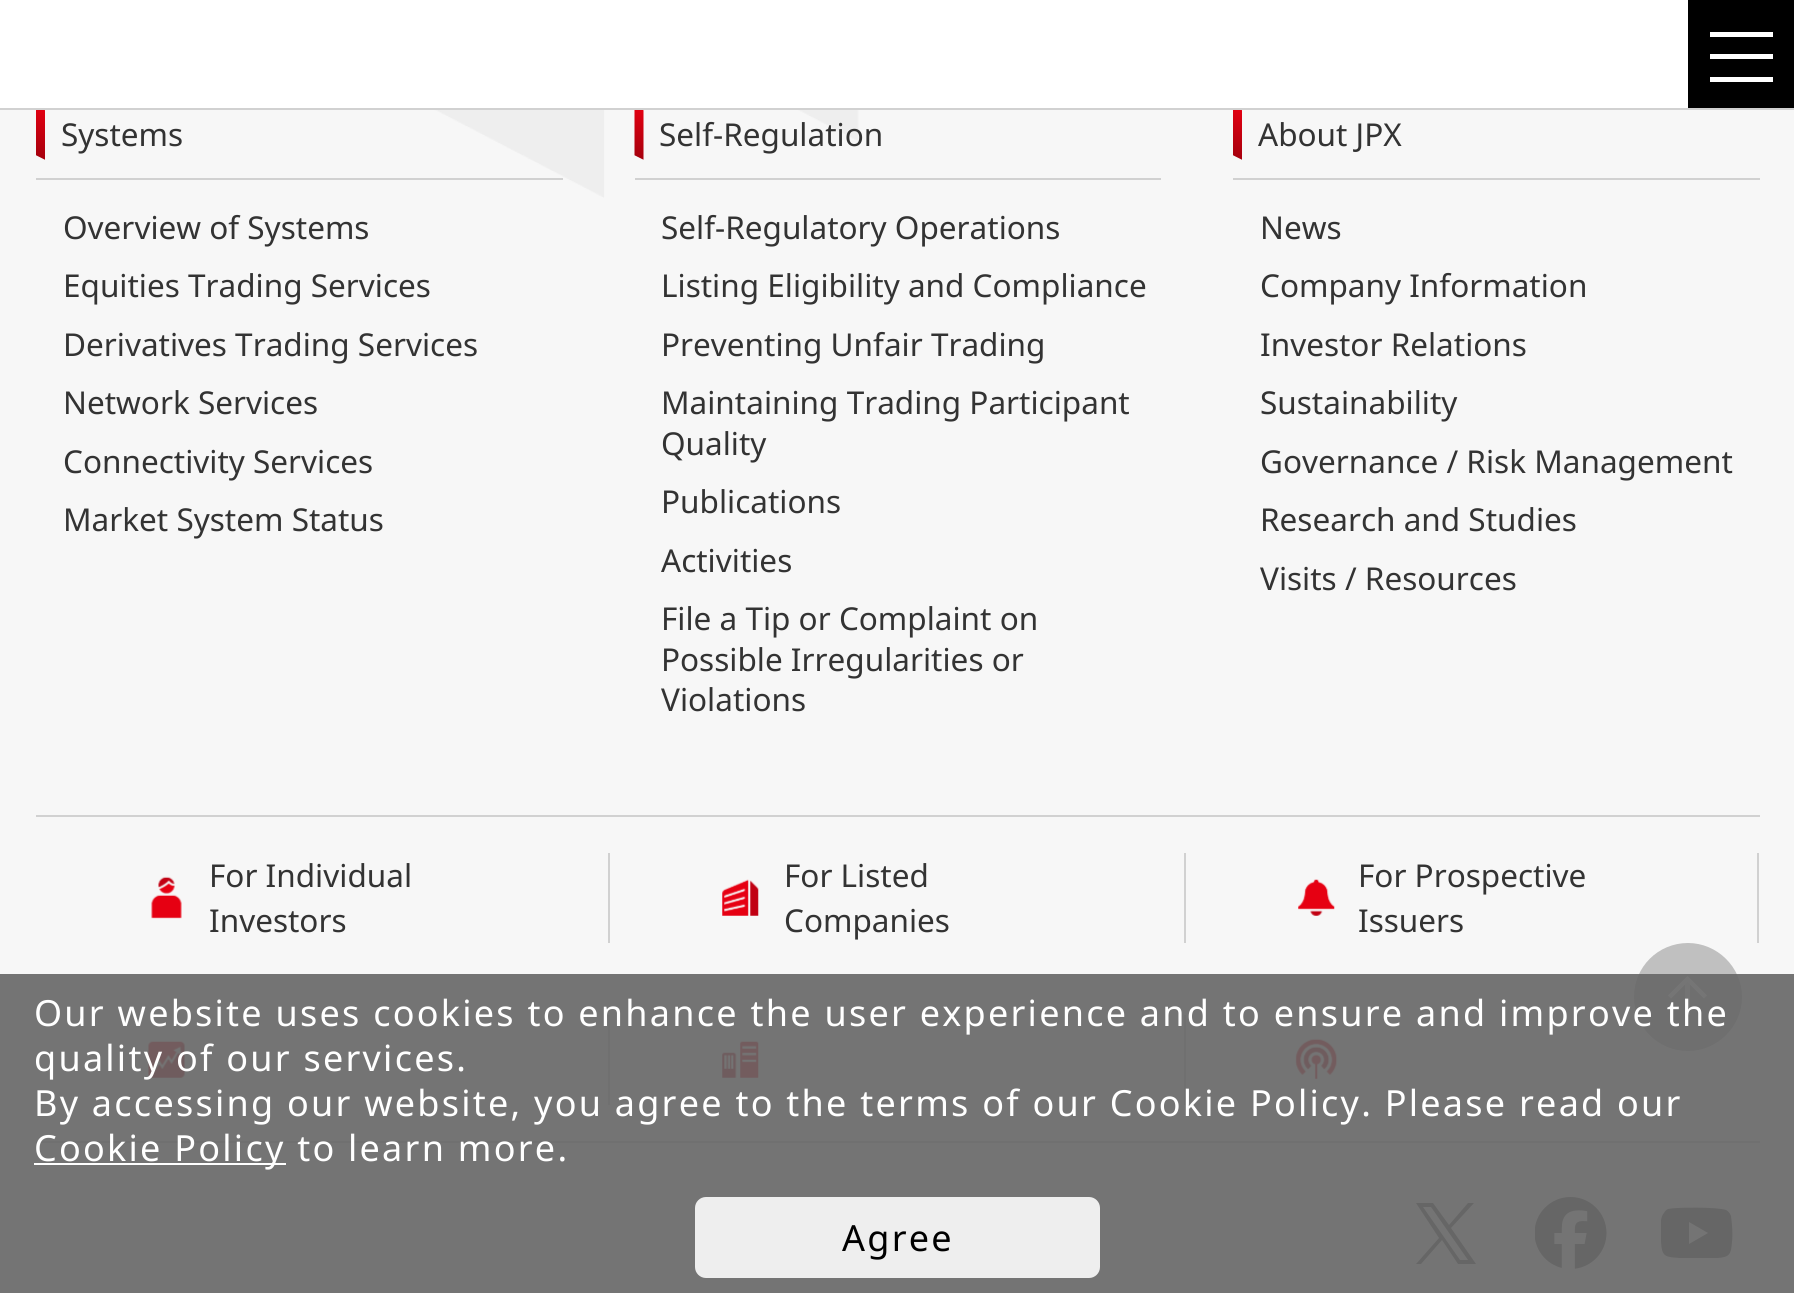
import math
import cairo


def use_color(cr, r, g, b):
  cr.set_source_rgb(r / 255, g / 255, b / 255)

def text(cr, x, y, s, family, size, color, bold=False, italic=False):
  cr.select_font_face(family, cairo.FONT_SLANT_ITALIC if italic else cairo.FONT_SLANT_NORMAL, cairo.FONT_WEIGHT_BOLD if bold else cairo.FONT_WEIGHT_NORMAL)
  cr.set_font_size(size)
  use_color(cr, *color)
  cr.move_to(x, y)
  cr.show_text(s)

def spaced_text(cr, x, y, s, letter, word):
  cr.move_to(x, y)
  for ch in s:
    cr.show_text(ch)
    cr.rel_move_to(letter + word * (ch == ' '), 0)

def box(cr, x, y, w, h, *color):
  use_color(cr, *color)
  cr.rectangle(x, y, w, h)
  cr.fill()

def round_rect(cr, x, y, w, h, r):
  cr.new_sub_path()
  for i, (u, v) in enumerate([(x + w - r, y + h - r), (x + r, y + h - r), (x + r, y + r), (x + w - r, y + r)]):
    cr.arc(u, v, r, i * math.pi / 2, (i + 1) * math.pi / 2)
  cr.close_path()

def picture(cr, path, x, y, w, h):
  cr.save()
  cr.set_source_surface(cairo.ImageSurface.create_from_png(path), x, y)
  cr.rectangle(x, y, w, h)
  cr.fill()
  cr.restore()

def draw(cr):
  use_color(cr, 247, 247, 247)
  cr.paint()
  box(cr, 0, 0, 1688, 108, 255, 255, 255)
  box(cr, 0, 108, 1794, 2, 209, 209, 209)
  box(cr, 1688, 0, 106, 108, 0, 0, 0)
  box(cr, 1710, 32, 63, 5, 255, 255, 255)
  box(cr, 1710, 54, 63, 5, 255, 255, 255)
  box(cr, 1710, 77, 63, 5, 255, 255, 255)
  picture(cr, "img_01.png", 434, 110, 425, 88)
  picture(cr, "img_02.png", 36, 110, 9, 50)
  box(cr, 36, 178, 527, 2, 209, 209, 209)
  picture(cr, "img_03.png", 634, 110, 10, 50)
  box(cr, 635, 178, 526, 2, 209, 209, 209)
  picture(cr, "img_04.png", 1233, 110, 9, 50)
  box(cr, 1233, 178, 527, 2, 209, 209, 209)
  box(cr, 36, 815, 1724, 2, 209, 209, 209)
  box(cr, 36, 1141, 1724, 2, 209, 209, 209)
  picture(cr, "img_05.png", 151, 876, 31, 43)
  box(cr, 608, 853, 2, 90, 209, 209, 209)
  picture(cr, "img_06.png", 722, 879, 37, 37)
  box(cr, 1184, 853, 2, 90, 209, 209, 209)
  picture(cr, "img_07.png", 1298, 879, 37, 37)
  box(cr, 1757, 853, 2, 90, 209, 209, 209)
  picture(cr, "img_08.png", 148, 1041, 37, 37)
  box(cr, 608, 1015, 2, 90, 209, 209, 209)
  picture(cr, "img_09.png", 722, 1041, 37, 37)
  box(cr, 1184, 1015, 2, 90, 209, 209, 209)
  picture(cr, "img_10.png", 1295, 1038, 43, 42)
  use_color(cr, 102, 102, 102)
  cr.new_path()
  cr.move_to(1476, 1264)
  cr.line_to(1458, 1264)
  cr.line_to(1442, 1240)
  cr.line_to(1421, 1264)
  cr.line_to(1416, 1264)
  cr.line_to(1439, 1238)
  cr.line_to(1416, 1203)
  cr.line_to(1433, 1203)
  cr.line_to(1449, 1225)
  cr.line_to(1468, 1203)
  cr.line_to(1474, 1203)
  cr.line_to(1451, 1228)
  cr.close_path()
  cr.move_to(1468, 1260)
  cr.line_to(1431, 1207)
  cr.line_to(1423, 1207)
  cr.line_to(1460, 1260)
  cr.close_path()
  cr.fill()
  picture(cr, "img_11.png", 1535, 1197, 72, 72)
  cr.save()
  cr.rectangle(1661, 1197, 72, 72)
  cr.clip()
  cr.new_path()
  cr.move_to(1731, 1216)
  cr.curve_to(1730, 1213, 1728, 1211, 1726, 1210)
  cr.curve_to(1718, 1207, 1677, 1207, 1668, 1209)
  cr.curve_to(1666, 1210, 1665, 1211, 1664, 1213)
  cr.curve_to(1659, 1218, 1660, 1235, 1661, 1242)
  cr.curve_to(1662, 1257, 1665, 1257, 1680, 1258)
  cr.line_to(1700, 1258)
  cr.line_to(1718, 1258)
  cr.curve_to(1730, 1257, 1731, 1254, 1732, 1242)
  cr.curve_to(1733, 1233, 1732, 1224, 1731, 1216)
  cr.close_path()
  cr.move_to(1689, 1244)
  cr.line_to(1689, 1222)
  cr.line_to(1708, 1233)
  cr.close_path()
  cr.fill()
  cr.restore()
  use_color(cr, 192, 192, 192)
  cr.new_path()
  cr.move_to(1688, 943)
  cr.curve_to(1717, 943, 1742, 967, 1742, 997)
  cr.curve_to(1742, 1027, 1717, 1051, 1688, 1051)
  cr.curve_to(1658, 1051, 1634, 1027, 1634, 997)
  cr.curve_to(1634, 967, 1658, 943, 1688, 943)
  cr.close_path()
  cr.fill()
  cr.new_path()
  cr.move_to(1705.5, 997)
  cr.line_to(1687.5, 979)
  cr.line_to(1669.5, 997)
  use_color(cr, 253, 253, 253)
  cr.set_line_width(4.5)
  cr.stroke()
  cr.set_source_rgba(0.992, 0.992, 0.992, 0.9)
  cr.rectangle(1685, 979, 5, 36)
  cr.fill()
  cr.set_source_rgba(0.4, 0.4, 0.4, 0.9)
  cr.rectangle(0, 974, 1794, 319)
  cr.fill()
  box(cr, 34, 1163, 252, 2, 255, 255, 255)
  use_color(cr, 238, 238, 238)
  round_rect(cr, 695, 1197, 405, 81, 11)
  cr.fill()
  text(cr, 61, 146, "Systems", "Noto Sans", 31.5, (51, 51, 51))
  text(cr, 63, 239, "Overview of Systems", "Noto Sans", 31.5, (51, 51, 51))
  text(cr, 63, 297, "Equities Trading Services", "Noto Sans", 31.5, (51, 51, 51))
  text(cr, 63, 356, "Derivatives Trading Services", "Noto Sans", 31.5, (51, 51, 51))
  text(cr, 63, 414, "Network Services", "Noto Sans", 31.5, (51, 51, 51))
  text(cr, 63, 473, "Connectivity Services", "Noto Sans", 31.5, (51, 51, 51))
  text(cr, 63, 531, "Market System Status", "Noto Sans", 31.5, (51, 51, 51))
  text(cr, 659, 146, "Self-Regulation", "Noto Sans", 31.5, (51, 51, 51))
  text(cr, 661, 239, "Self-Regulatory Operations", "Noto Sans", 31.5, (51, 51, 51))
  text(cr, 661, 297, "Listing Eligibility and Compliance", "Noto Sans", 31.5, (51, 51, 51))
  text(cr, 661, 356, "Preventing Unfair Trading", "Noto Sans", 31.5, (51, 51, 51))
  text(cr, 661, 414, "Maintaining Trading Participant", "Noto Sans", 31.5, (51, 51, 51))
  text(cr, 661, 455, "Quality", "Noto Sans", 31.5, (51, 51, 51))
  text(cr, 661, 513, "Publications", "Noto Sans", 31.5, (51, 51, 51))
  text(cr, 661, 572, "Activities", "Noto Sans", 31.5, (51, 51, 51))
  text(cr, 661, 630, "File a Tip or Complaint on", "Noto Sans", 31.5, (51, 51, 51))
  text(cr, 661, 671, "Possible Irregularities or", "Noto Sans", 31.5, (51, 51, 51))
  text(cr, 661, 711, "Violations", "Noto Sans", 31.5, (51, 51, 51))
  text(cr, 1258, 146, "About JPX", "Noto Sans", 31.5, (51, 51, 51))
  text(cr, 1260, 239, "News", "Noto Sans", 31.5, (51, 51, 51))
  text(cr, 1260, 297, "Company Information", "Noto Sans", 31.5, (51, 51, 51))
  text(cr, 1260, 356, "Investor Relations", "Noto Sans", 31.5, (51, 51, 51))
  text(cr, 1260, 414, "Sustainability", "Noto Sans", 31.5, (51, 51, 51))
  text(cr, 1260, 473, "Governance / Risk Management", "Noto Sans", 31.5, (51, 51, 51))
  text(cr, 1260, 531, "Research and Studies", "Noto Sans", 31.5, (51, 51, 51))
  text(cr, 1260, 590, "Visits / Resources", "Noto Sans", 31.5, (51, 51, 51))
  text(cr, 209, 887, "For Individual", "Noto Sans", 31.5, (51, 51, 51))
  text(cr, 209, 932, "Investors", "Noto Sans", 31.5, (51, 51, 51))
  text(cr, 784, 887, "For Listed", "Noto Sans", 31.5, (51, 51, 51))
  text(cr, 784, 932, "Companies", "Noto Sans", 31.5, (51, 51, 51))
  text(cr, 1358, 887, "For Prospective", "Noto Sans", 31.5, (51, 51, 51))
  text(cr, 1358, 932, "Issuers", "Noto Sans", 31.5, (51, 51, 51))
  cr.set_font_size(36)
  use_color(cr, 255, 255, 255)
  spaced_text(cr, 34, 1026, "Our website uses cookies to enhance the user experience and to ensure and improve the", 2.25, 0)
  spaced_text(cr, 34, 1071, "quality of our services.", 2.25, 0)
  spaced_text(cr, 34, 1116, "By accessing our website, you agree to the terms of our Cookie Policy. Please read our", 2.25, 0)
  spaced_text(cr, 34, 1161, "Cookie Policy to learn more.", 2.25, 0)
  use_color(cr, 0, 0, 0)
  spaced_text(cr, 842, 1251, "Agree", 2.25, 0)


surface = cairo.ImageSurface(cairo.FORMAT_RGB24, 1794, 1293)
cr = cairo.Context(surface)
options = cairo.FontOptions()
options.set_hint_metrics(cairo.HINT_METRICS_OFF)
options.set_hint_style(cairo.HINT_STYLE_NONE)
cr.set_font_options(options)
cr.set_miter_limit(4)
draw(cr)
surface.write_to_png("out.png")
